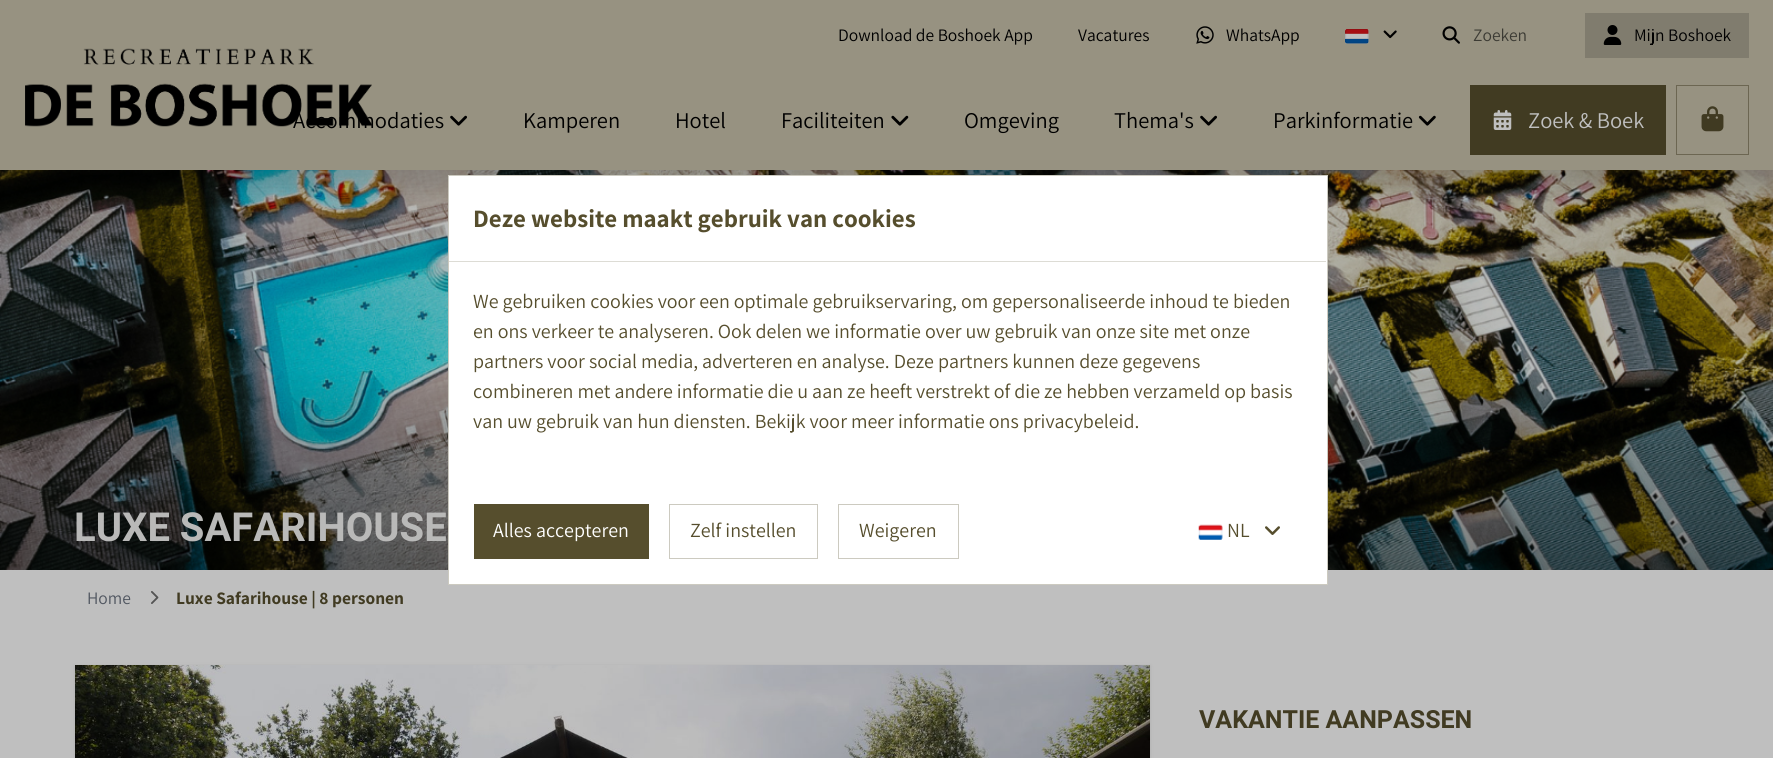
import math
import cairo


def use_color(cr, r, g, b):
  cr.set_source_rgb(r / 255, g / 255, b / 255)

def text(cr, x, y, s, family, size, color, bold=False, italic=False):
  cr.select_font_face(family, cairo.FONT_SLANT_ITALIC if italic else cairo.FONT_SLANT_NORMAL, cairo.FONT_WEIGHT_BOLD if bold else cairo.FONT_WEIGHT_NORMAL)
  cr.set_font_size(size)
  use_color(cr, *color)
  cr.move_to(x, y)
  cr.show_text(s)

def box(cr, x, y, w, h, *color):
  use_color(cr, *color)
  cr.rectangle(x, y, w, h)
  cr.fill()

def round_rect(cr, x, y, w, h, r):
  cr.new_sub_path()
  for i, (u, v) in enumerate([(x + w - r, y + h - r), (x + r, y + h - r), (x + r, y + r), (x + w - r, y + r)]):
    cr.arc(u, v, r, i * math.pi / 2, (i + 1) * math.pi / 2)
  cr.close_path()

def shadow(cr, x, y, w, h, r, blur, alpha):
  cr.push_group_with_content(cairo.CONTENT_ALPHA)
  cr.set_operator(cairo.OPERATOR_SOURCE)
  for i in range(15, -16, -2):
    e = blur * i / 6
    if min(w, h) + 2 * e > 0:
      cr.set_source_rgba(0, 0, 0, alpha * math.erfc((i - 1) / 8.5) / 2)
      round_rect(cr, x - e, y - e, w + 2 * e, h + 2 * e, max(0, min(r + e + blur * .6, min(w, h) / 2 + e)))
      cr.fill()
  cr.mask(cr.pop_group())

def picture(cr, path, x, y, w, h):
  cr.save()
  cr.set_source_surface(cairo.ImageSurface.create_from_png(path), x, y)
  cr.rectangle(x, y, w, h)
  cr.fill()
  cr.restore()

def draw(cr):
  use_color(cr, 191, 191, 191)
  cr.paint()
  picture(cr, "img_12.png", 0, 170, 1773, 400)
  use_color(cr, 0, 0, 0)
  shadow(cr, 0, 90, 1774, 100, 0, 10, 0.15)
  box(cr, 0, 0, 1773, 170, 151, 146, 129)
  picture(cr, "img_01.png", 1196, 26, 18, 18)
  picture(cr, "img_02.png", 1345, 29, 24, 15)
  picture(cr, "img_03.png", 1383, 30, 14, 9)
  picture(cr, "img_04.png", 1442, 26, 18, 18)
  box(cr, 1585, 13, 164, 45, 128, 124, 110)
  picture(cr, "img_05.png", 1603, 25, 19, 20)
  picture(cr, "img_07.png", 450, 115, 17, 11)
  picture(cr, "img_08.png", 891, 115, 18, 11)
  picture(cr, "img_07.png", 1200, 115, 17, 11)
  picture(cr, "img_09.png", 1418, 115, 18, 11)
  box(cr, 1470, 85, 196, 70, 65, 59, 34)
  picture(cr, "img_10.png", 1493, 110, 19, 20)
  cr.rectangle(1676.5, 85.5, 72, 69)
  use_color(cr, 108, 102, 82)
  cr.set_line_width(1)
  cr.stroke()
  picture(cr, "img_11.png", 1701, 106, 23, 26)
  picture(cr, "img_13.png", 151, 591, 8, 13)
  use_color(cr, 0, 0, 0)
  shadow(cr, 75, 666, 1075, 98, 0, 2, 0.1)
  picture(cr, "img_14.png", 75, 665, 1075, 93)
  use_color(cr, 255, 255, 255)
  cr.rectangle(448.5, 175.5, 879, 409)
  cr.fill_preserve()
  use_color(cr, 204, 202, 192)
  cr.stroke()
  box(cr, 449, 261, 877, 1, 221, 220, 213)
  box(cr, 474, 504, 175, 55, 86, 78, 45)
  cr.rectangle(669.5, 504.5, 148, 54)
  use_color(cr, 204, 202, 192)
  cr.stroke()
  cr.rectangle(838.5, 504.5, 120, 54)
  cr.stroke()
  picture(cr, "img_15.png", 1198, 524, 25, 16)
  picture(cr, "img_16.png", 1265, 526, 15, 9)
  text(cr, 838, 41, "Download de Boshoek App", "Assistant", 17.5, (0, 0, 0))
  text(cr, 1078, 41, "Vacatures", "Assistant", 17.5, (0, 0, 0))
  text(cr, 1226, 41, "WhatsApp", "Assistant", 17.5, (0, 0, 0))
  text(cr, 1473, 41, "Zoeken", "Assistant", 17.5, (60, 59, 52))
  text(cr, 1634, 41, "Mijn Boshoek", "Assistant", 17.5, (0, 0, 0))
  text(cr, 293, 128, "Accommodaties", "Assistant", 22.5, (0, 0, 0))
  picture(cr, "img_06.png", 25, 48, 347, 79)
  text(cr, 523, 128, "Kamperen", "Assistant", 22.5, (0, 0, 0))
  text(cr, 675, 128, "Hotel", "Assistant", 22.5, (0, 0, 0))
  text(cr, 781, 128, "Faciliteiten", "Assistant", 22.5, (0, 0, 0))
  text(cr, 964, 128, "Omgeving", "Assistant", 22.5, (0, 0, 0))
  text(cr, 1114, 128, "Thema's", "Assistant", 22.5, (0, 0, 0))
  text(cr, 1273, 128, "Parkinformatie", "Assistant", 22.5, (0, 0, 0))
  text(cr, 1528, 128, "Zoek & Boek", "Assistant", 22.5, (191, 191, 191))
  text(cr, 74, 541, "LUXE SAFARIHOUSE", "Roboto", 40, (185, 185, 184), bold=True)
  text(cr, 87, 604, "Home", "Assistant", 17.5, (80, 86, 96))
  text(cr, 176, 604, "Luxe Safarihouse | 8 personen", "Assistant", 17.5, (65, 59, 34), bold=True)
  text(cr, 1199, 728, "VAKANTIE AANPASSEN", "Roboto", 25, (65, 59, 34), bold=True)
  text(cr, 473, 227, "Deze website maakt gebruik van cookies", "Assistant", 25, (86, 78, 45), bold=True)
  text(cr, 473, 308, "We gebruiken cookies voor een optimale gebruikservaring, om gepersonaliseerde inhoud te bieden", "Assistant", 20, (86, 78, 45))
  text(cr, 473, 338, "en ons verkeer te analyseren. Ook delen we informatie over uw gebruik van onze site met onze", "Assistant", 20, (86, 78, 45))
  text(cr, 473, 368, "partners voor social media, adverteren en analyse. Deze partners kunnen deze gegevens", "Assistant", 20, (86, 78, 45))
  text(cr, 473, 398, "combineren met andere informatie die u aan ze heeft verstrekt of die ze hebben verzameld op basis", "Assistant", 20, (86, 78, 45))
  text(cr, 473, 428, "van uw gebruik van hun diensten. Bekijk voor meer informatie ons privacybeleid.", "Assistant", 20, (86, 78, 45))
  text(cr, 493, 537, "Alles accepteren", "Assistant", 20, (255, 255, 255))
  text(cr, 690, 537, "Zelf instellen", "Assistant", 20, (86, 78, 45))
  text(cr, 859, 537, "Weigeren", "Assistant", 20, (86, 78, 45))
  text(cr, 1227, 537, "NL", "Assistant", 20, (86, 78, 45))


surface = cairo.ImageSurface(cairo.FORMAT_RGB24, 1773, 758)
cr = cairo.Context(surface)
options = cairo.FontOptions()
options.set_hint_metrics(cairo.HINT_METRICS_OFF)
options.set_hint_style(cairo.HINT_STYLE_NONE)
cr.set_font_options(options)
cr.set_miter_limit(4)
draw(cr)
surface.write_to_png("out.png")
